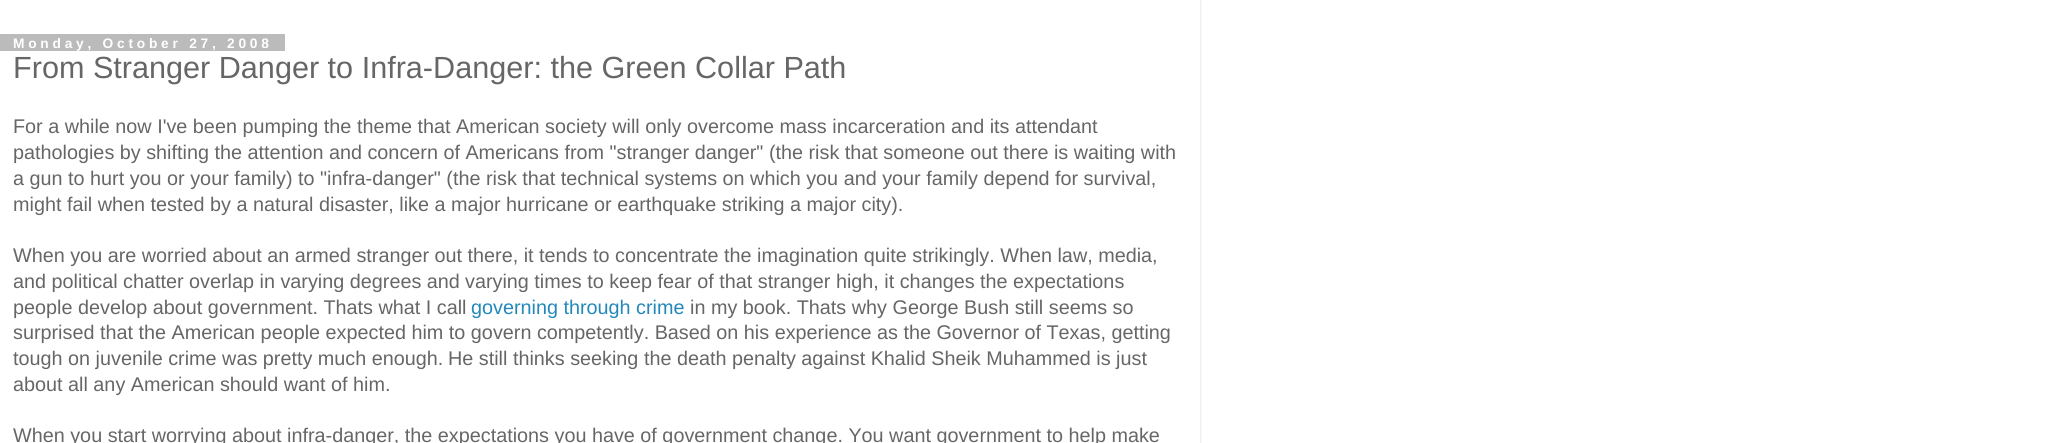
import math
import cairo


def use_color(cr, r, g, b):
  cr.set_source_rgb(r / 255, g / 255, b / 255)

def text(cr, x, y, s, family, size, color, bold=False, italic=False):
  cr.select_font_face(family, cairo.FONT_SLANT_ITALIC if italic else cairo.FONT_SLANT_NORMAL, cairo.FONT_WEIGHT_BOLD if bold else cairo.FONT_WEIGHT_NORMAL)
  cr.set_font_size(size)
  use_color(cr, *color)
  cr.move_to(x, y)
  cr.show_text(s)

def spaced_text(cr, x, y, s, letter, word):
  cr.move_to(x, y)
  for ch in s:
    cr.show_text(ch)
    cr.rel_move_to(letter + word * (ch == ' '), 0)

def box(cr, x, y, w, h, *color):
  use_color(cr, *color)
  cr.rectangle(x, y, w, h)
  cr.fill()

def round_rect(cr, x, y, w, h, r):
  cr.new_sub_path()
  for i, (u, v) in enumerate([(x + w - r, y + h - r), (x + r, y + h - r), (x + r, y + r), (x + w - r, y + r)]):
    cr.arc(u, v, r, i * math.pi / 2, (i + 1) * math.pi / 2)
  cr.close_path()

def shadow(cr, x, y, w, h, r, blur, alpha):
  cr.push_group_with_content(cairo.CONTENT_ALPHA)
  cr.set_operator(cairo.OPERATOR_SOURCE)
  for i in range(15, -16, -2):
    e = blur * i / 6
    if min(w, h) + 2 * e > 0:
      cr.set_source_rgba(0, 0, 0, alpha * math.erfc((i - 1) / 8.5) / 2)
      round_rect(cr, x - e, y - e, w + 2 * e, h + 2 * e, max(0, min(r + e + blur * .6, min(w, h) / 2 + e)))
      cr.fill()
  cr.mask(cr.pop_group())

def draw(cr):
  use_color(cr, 255, 255, 255)
  cr.paint()
  cr.save()
  cr.rectangle(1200, 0, 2, 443)
  cr.clip()
  use_color(cr, 0, 0, 0)
  shadow(cr, 0, -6, 1200, 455, 0, 2, 0.15)
  cr.restore()
  box(cr, 0, 34, 285, 17, 187, 187, 187)
  cr.select_font_face("Liberation Sans", cairo.FONT_SLANT_NORMAL, cairo.FONT_WEIGHT_BOLD)
  cr.set_font_size(13.75)
  use_color(cr, 255, 255, 255)
  spaced_text(cr, 13, 48, "Monday, October 27, 2008", 3.75, 0)
  text(cr, 13, 78, "From Stranger Danger to Infra-Danger: the Green Collar Path", "Liberation Sans", 30.6, (102, 102, 102))
  text(cr, 13, 133, "For a while now I've been pumping the theme that American society will only overcome mass incarceration and its attendant", "Liberation Sans", 19.8, (102, 102, 102))
  text(cr, 13, 159, "pathologies by shifting the attention and concern of Americans from \"stranger danger\" (the risk that someone out there is waiting with", "Liberation Sans", 19.8, (102, 102, 102))
  text(cr, 13, 185, "a gun to hurt you or your family) to \"infra-danger\" (the risk that technical systems on which you and your family depend for survival,", "Liberation Sans", 19.8, (102, 102, 102))
  text(cr, 13, 211, "might fail when tested by a natural disaster, like a major hurricane or earthquake striking a major city).", "Liberation Sans", 19.8, (102, 102, 102))
  text(cr, 13, 262, "When you are worried about an armed stranger out there, it tends to concentrate the imagination quite strikingly. When law, media,", "Liberation Sans", 19.8, (102, 102, 102))
  text(cr, 13, 288, "and political chatter overlap in varying degrees and", "Liberation Sans", 19.8, (102, 102, 102))
  text(cr, 465, 288, "varying times to keep fear of that stranger high, it changes the expectations", "Liberation Sans", 19.8, (102, 102, 102))
  text(cr, 13, 314, "people develop about government. Thats what I call", "Liberation Sans", 19.8, (102, 102, 102))
  text(cr, 471, 314, "governing through crime", "Liberation Sans", 19.8, (34, 136, 187))
  text(cr, 690, 314, "in my book. Thats why George Bush still seems so", "Liberation Sans", 19.8, (102, 102, 102))
  text(cr, 13, 339, "surprised that the American people expected him to govern competently. Based on his experience as the Governor of Texas, getting", "Liberation Sans", 19.8, (102, 102, 102))
  text(cr, 13, 365, "tough on juvenile crime was pretty much enough.", "Liberation Sans", 19.8, (102, 102, 102))
  text(cr, 448, 365, "He still thinks seeking the death penalty against Khalid Sheik Muhammed is just", "Liberation Sans", 19.8, (102, 102, 102))
  text(cr, 13, 391, "about all any American should want of him.", "Liberation Sans", 19.8, (102, 102, 102))
  text(cr, 13, 442, "When you start worrying about infra-danger, the expectations you have of government change. You want government to help make", "Liberation Sans", 19.8, (102, 102, 102))


surface = cairo.ImageSurface(cairo.FORMAT_RGB24, 2071, 443)
cr = cairo.Context(surface)
options = cairo.FontOptions()
options.set_hint_metrics(cairo.HINT_METRICS_OFF)
options.set_hint_style(cairo.HINT_STYLE_NONE)
cr.set_font_options(options)
cr.set_miter_limit(4)
draw(cr)
surface.write_to_png("out.png")
